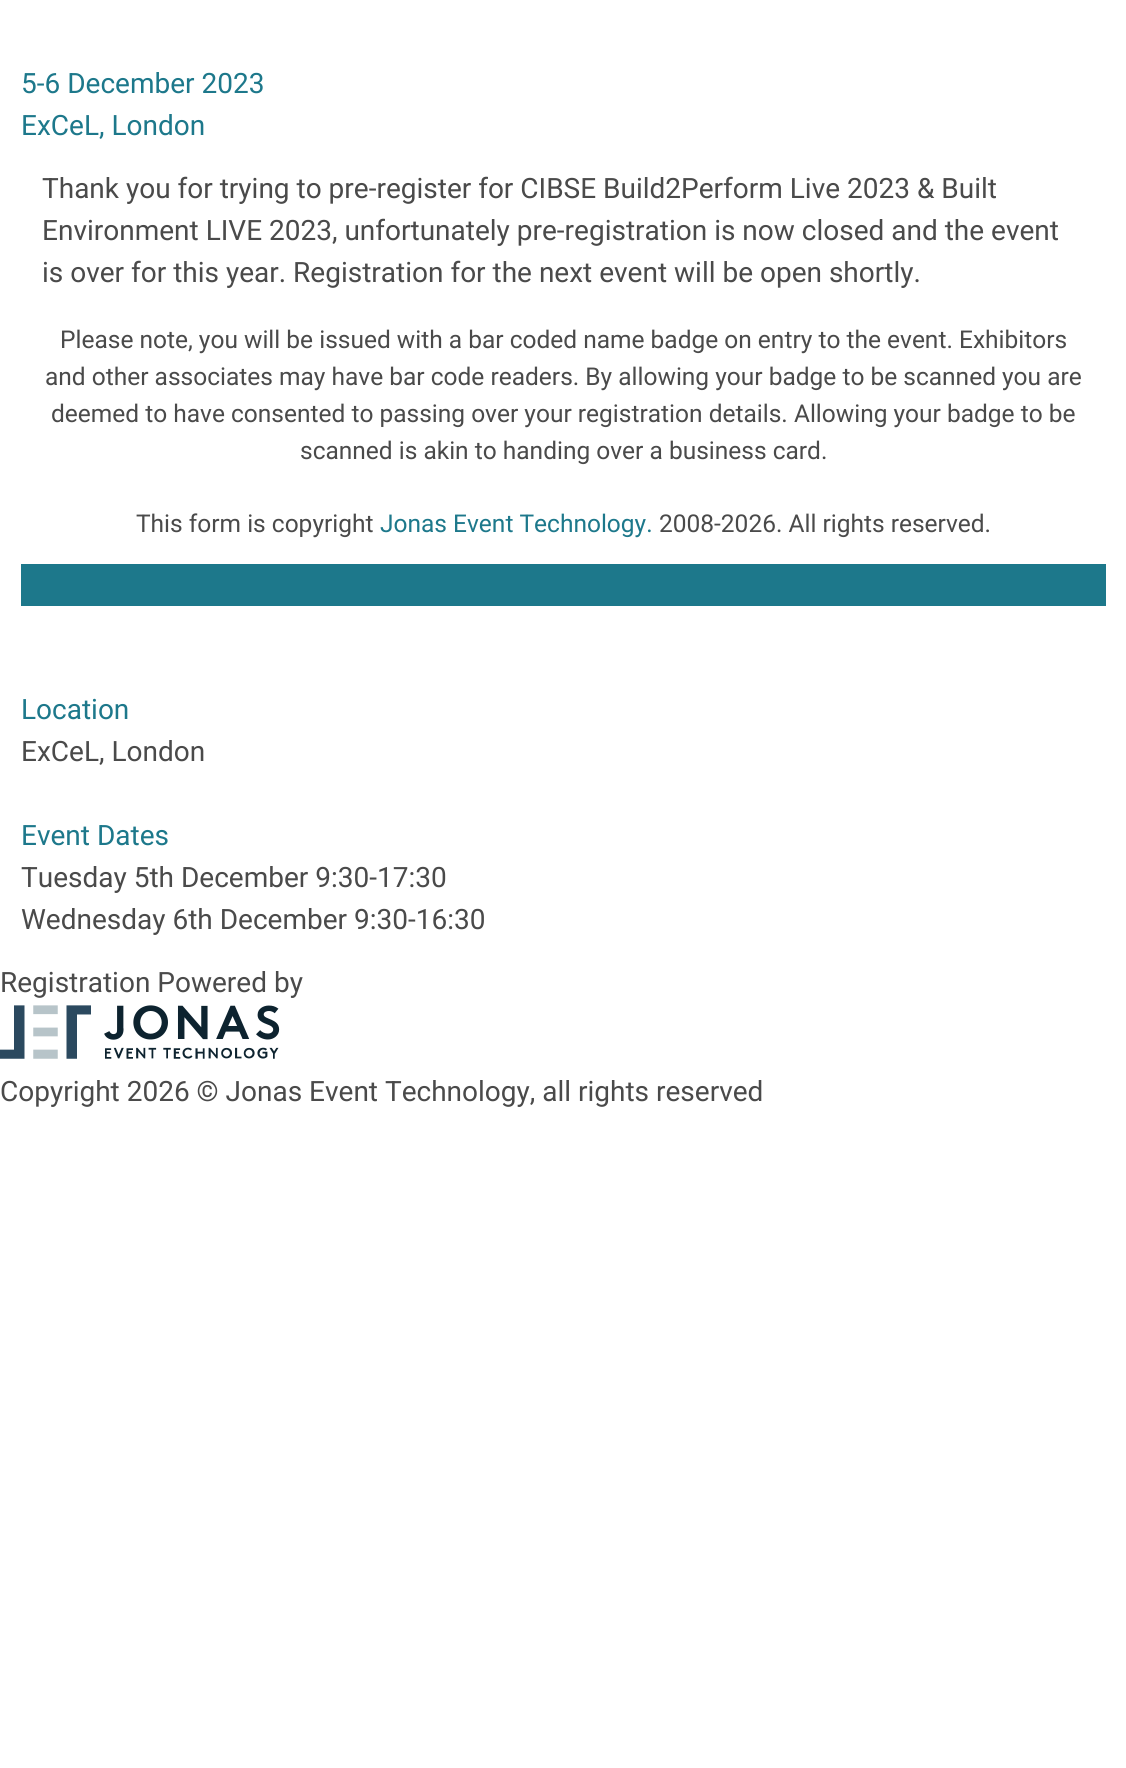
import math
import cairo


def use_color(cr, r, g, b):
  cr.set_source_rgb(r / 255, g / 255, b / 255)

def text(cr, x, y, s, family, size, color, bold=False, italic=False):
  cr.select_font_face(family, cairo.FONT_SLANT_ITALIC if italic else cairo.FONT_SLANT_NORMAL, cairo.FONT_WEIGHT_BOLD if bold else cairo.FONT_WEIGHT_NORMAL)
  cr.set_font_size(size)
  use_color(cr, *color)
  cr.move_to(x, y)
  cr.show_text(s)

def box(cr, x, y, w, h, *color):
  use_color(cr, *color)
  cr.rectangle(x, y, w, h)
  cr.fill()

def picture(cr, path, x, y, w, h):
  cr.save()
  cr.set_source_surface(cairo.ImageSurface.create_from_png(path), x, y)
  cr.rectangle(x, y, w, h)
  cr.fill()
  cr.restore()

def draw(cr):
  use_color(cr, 255, 255, 255)
  cr.paint()
  box(cr, 21, 564, 1085, 42, 29, 120, 139)
  picture(cr, "img_01.png", 0, 1005, 280, 54)
  text(cr, 21, 93, "5-6 December 2023", "Roboto", 28, (29, 120, 139))
  text(cr, 21, 135, "ExCeL, London", "Roboto", 28, (29, 120, 139))
  text(cr, 42, 198, "Thank you for trying to pre-register for CIBSE Build2Perform Live 2023 & Built", "Roboto", 28, (74, 74, 74))
  text(cr, 42, 240, "Environment LIVE 2023, unfortunately pre-registration is now closed and the event", "Roboto", 28, (74, 74, 74))
  text(cr, 42, 282, "is over for this year. Registration for the next event will be open shortly.", "Roboto", 28, (74, 74, 74))
  text(cr, 60, 348, "Please note, you will be issued with a bar coded name badge on entry to the event. Exhibitors", "Roboto", 24.5, (74, 74, 74))
  text(cr, 45, 385, "and other associates may have bar code readers. By allowing your badge to be scanned you are", "Roboto", 24.5, (74, 74, 74))
  text(cr, 51, 422, "deemed to have consented to passing over your registration details. Allowing your badge to be", "Roboto", 24.5, (74, 74, 74))
  text(cr, 300, 459, "scanned is akin to handing over a business card.", "Roboto", 24.5, (74, 74, 74))
  text(cr, 136, 532, "This form is copyright", "Roboto", 24.5, (74, 74, 74))
  text(cr, 380, 532, "Jonas Event Technology.", "Roboto", 24.5, (29, 120, 139))
  text(cr, 659, 532, "2008-2026. All rights reserved.", "Roboto", 24.5, (74, 74, 74))
  text(cr, 21, 719, "Location", "Roboto", 28, (29, 120, 139))
  text(cr, 21, 761, "ExCeL, London", "Roboto", 28, (74, 74, 74))
  text(cr, 21, 845, "Event Dates", "Roboto", 28, (29, 120, 139))
  text(cr, 21, 887, "Tuesday 5th December 9:30-17:30", "Roboto", 28, (74, 74, 74))
  text(cr, 21, 929, "Wednesday 6th December 9:30-16:30", "Roboto", 28, (74, 74, 74))
  text(cr, 0, 992, "Registration Powered by", "Roboto", 28, (74, 74, 74))
  text(cr, 0, 1101, "Copyright 2026 © Jonas Event Technology, all rights reserved", "Roboto", 28, (74, 74, 74))


surface = cairo.ImageSurface(cairo.FORMAT_RGB24, 1126, 1768)
cr = cairo.Context(surface)
options = cairo.FontOptions()
options.set_hint_metrics(cairo.HINT_METRICS_OFF)
options.set_hint_style(cairo.HINT_STYLE_NONE)
cr.set_font_options(options)
cr.set_miter_limit(4)
draw(cr)
surface.write_to_png("out.png")
